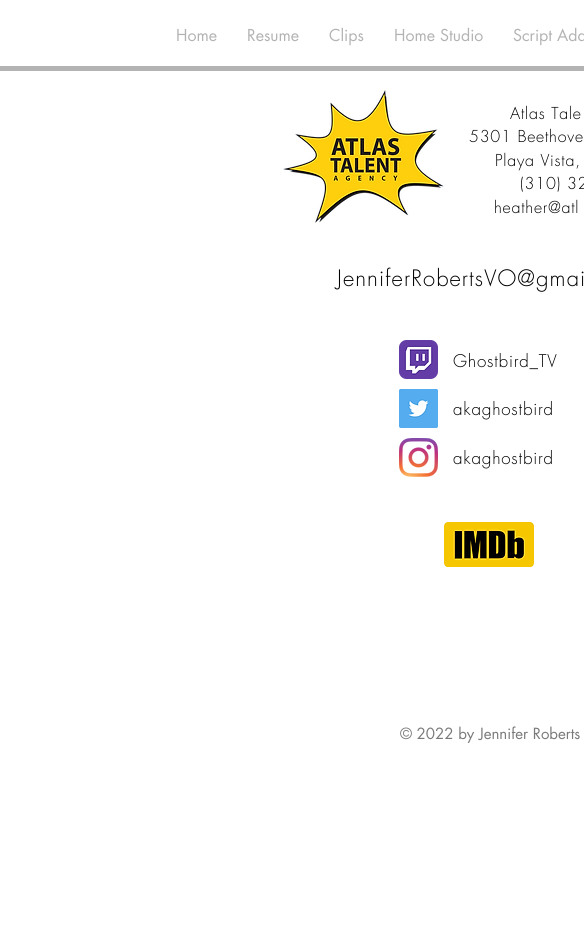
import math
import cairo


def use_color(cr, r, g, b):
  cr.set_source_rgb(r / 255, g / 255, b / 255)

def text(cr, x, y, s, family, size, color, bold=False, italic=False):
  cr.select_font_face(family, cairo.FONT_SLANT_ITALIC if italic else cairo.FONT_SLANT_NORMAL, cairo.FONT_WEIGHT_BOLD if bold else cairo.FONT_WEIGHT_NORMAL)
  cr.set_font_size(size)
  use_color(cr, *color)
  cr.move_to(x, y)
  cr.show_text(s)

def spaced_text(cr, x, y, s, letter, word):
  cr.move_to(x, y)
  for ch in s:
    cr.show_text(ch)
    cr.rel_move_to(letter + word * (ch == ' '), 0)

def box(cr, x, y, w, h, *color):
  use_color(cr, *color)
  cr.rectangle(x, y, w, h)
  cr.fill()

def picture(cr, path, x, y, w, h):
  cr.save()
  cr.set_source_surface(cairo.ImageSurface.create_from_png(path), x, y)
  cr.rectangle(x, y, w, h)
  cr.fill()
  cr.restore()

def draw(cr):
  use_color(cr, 255, 255, 255)
  cr.paint()
  box(cr, 0, 66, 584, 5, 179, 179, 179)
  picture(cr, "img_01.png", 283, 90, 161, 133)
  picture(cr, "img_02.png", 399, 340, 39, 39)
  picture(cr, "img_03.png", 399, 389, 39, 39)
  picture(cr, "img_04.png", 399, 438, 39, 39)
  picture(cr, "img_05.png", 444, 522, 90, 45)
  text(cr, 176, 41, "Home", "futura", 16, (179, 179, 179))
  text(cr, 247, 41, "Resume", "futura", 16, (179, 179, 179))
  text(cr, 329, 41, "Clips", "futura", 16, (179, 179, 179))
  text(cr, 394, 41, "Home Studio", "futura", 16, (179, 179, 179))
  text(cr, 513, 41, "Script Ada", "futura", 16, (179, 179, 179))
  cr.select_font_face("futura Light")
  use_color(cr, 0, 0, 0)
  spaced_text(cr, 510, 119, "Atlas Tale", 0.75, 0)
  spaced_text(cr, 469, 142, "5301 Beethove", 0.75, 0)
  spaced_text(cr, 495, 166, "Playa Vista,", 0.75, 0)
  spaced_text(cr, 520, 189, "(310) 32", 0.75, 0)
  spaced_text(cr, 494, 213, "heather@atl", 0.75, 0)
  cr.set_font_size(22)
  spaced_text(cr, 337, 286, "JenniferRobertsVO@gmai", 1.1, 0)
  cr.set_font_size(17)
  spaced_text(cr, 453, 367, "Ghostbird_TV", 0.8, 0)
  spaced_text(cr, 453, 415, "akaghostbird", 0.8, 0)
  spaced_text(cr, 453, 464, "akaghostbird", 0.8, 0)
  text(cr, 400, 739, "© 2022 by Jennifer Roberts", "futura", 15, (122, 122, 122))


surface = cairo.ImageSurface(cairo.FORMAT_RGB24, 584, 936)
cr = cairo.Context(surface)
options = cairo.FontOptions()
options.set_hint_metrics(cairo.HINT_METRICS_OFF)
options.set_hint_style(cairo.HINT_STYLE_NONE)
cr.set_font_options(options)
cr.set_miter_limit(4)
draw(cr)
surface.write_to_png("out.png")
